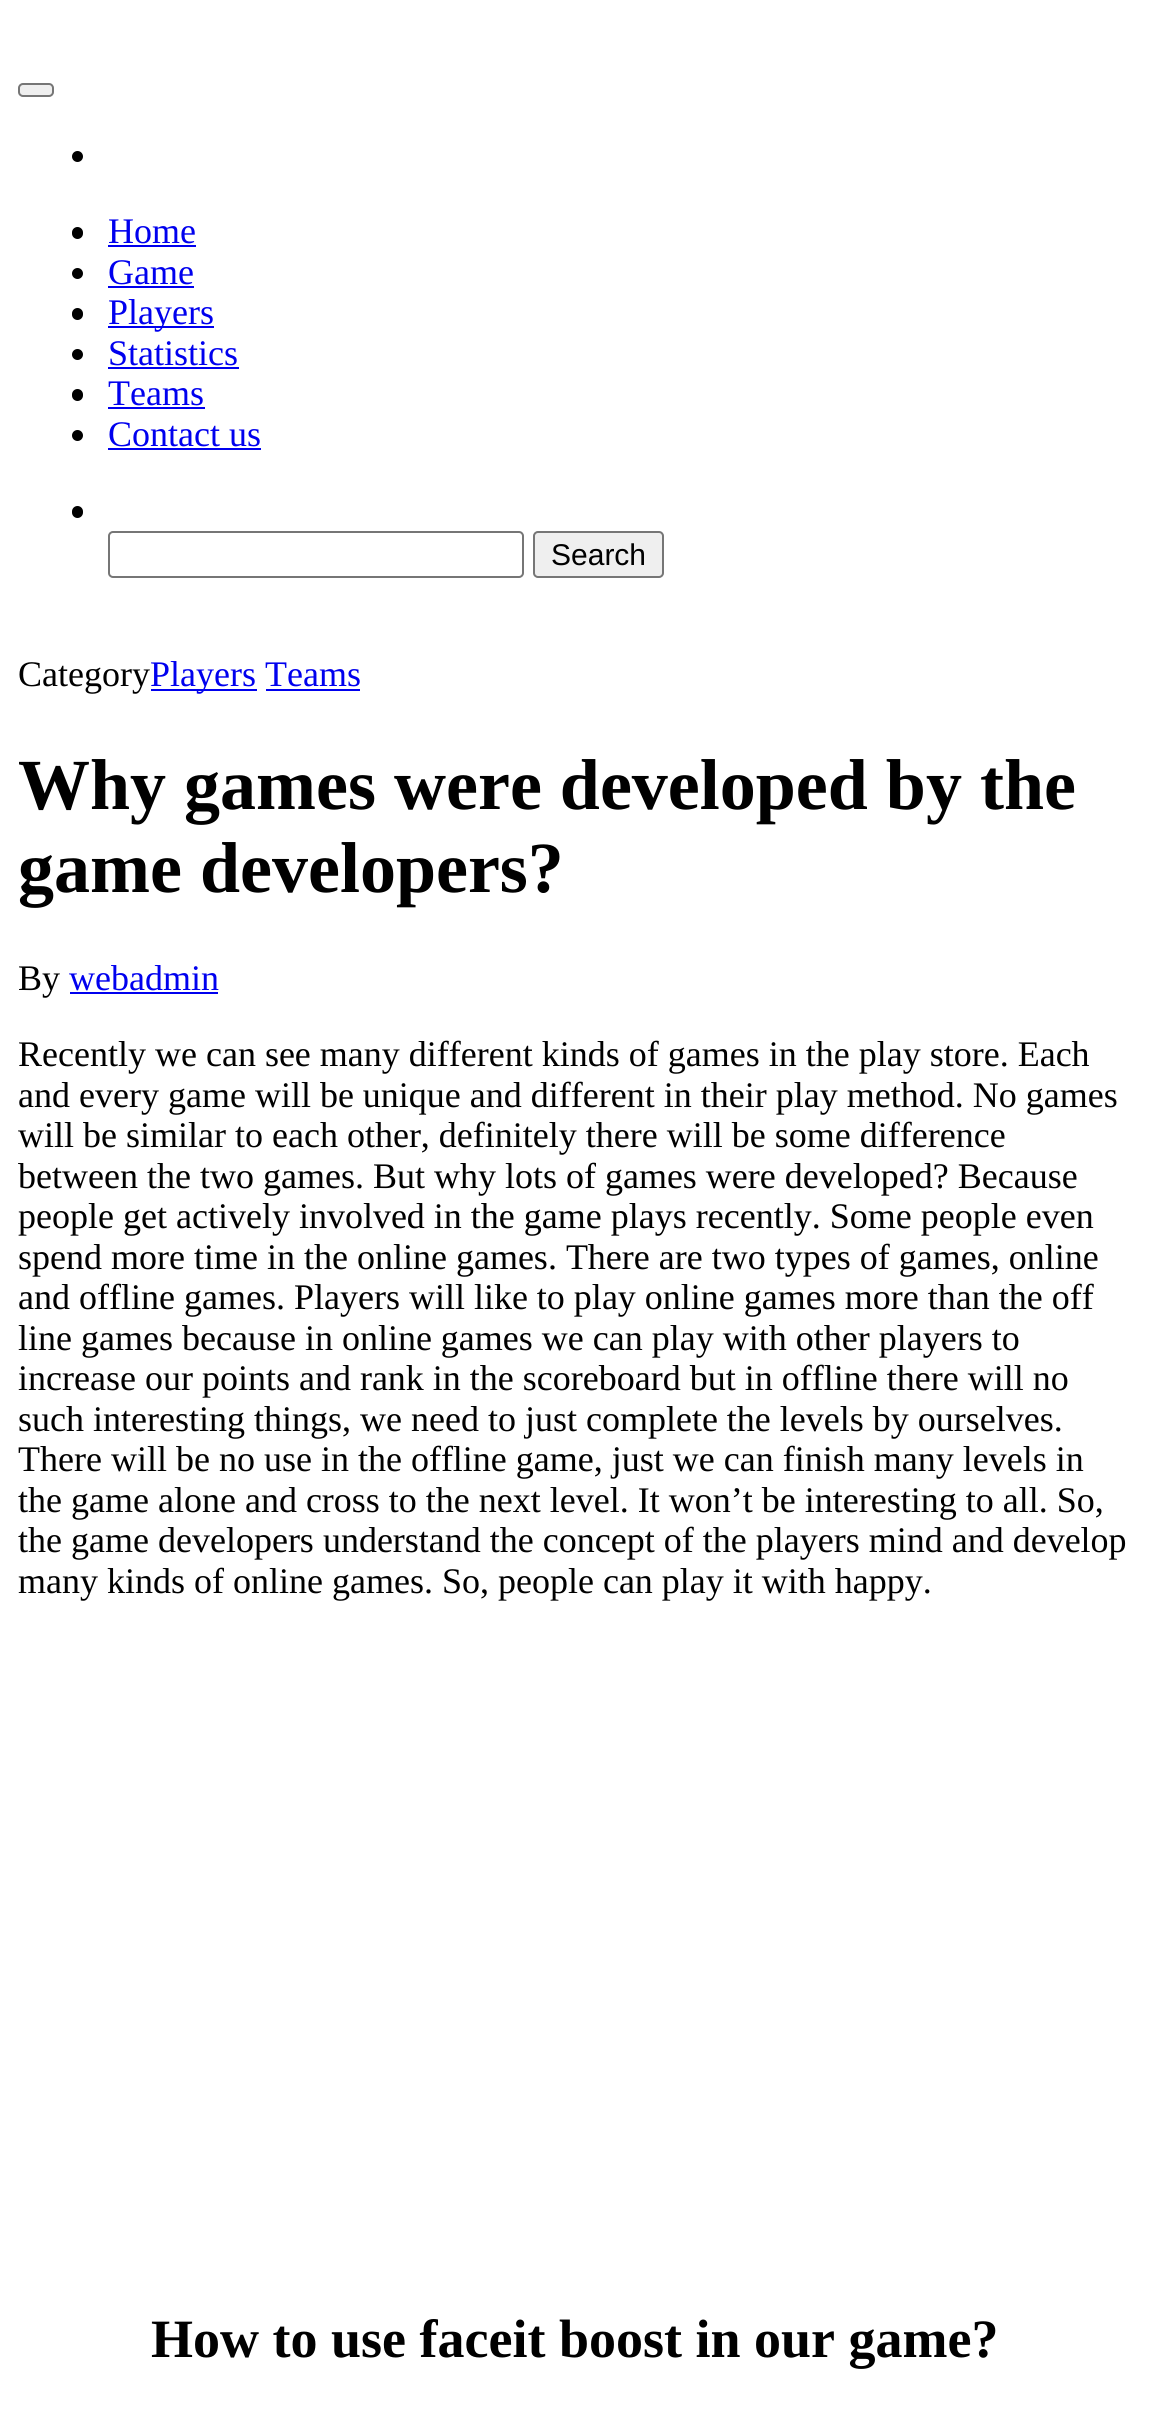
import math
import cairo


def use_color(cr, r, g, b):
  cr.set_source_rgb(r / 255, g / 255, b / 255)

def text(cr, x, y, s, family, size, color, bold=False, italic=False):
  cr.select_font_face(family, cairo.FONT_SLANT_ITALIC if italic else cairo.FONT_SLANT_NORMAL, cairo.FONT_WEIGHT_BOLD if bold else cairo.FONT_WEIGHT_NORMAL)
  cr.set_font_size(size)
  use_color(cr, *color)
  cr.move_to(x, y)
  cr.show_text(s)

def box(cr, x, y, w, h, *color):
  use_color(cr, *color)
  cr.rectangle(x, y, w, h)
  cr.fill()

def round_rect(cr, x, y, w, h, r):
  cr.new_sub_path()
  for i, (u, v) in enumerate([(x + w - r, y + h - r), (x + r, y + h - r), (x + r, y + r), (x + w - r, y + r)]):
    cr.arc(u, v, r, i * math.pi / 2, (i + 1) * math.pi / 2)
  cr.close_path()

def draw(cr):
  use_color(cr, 255, 255, 255)
  cr.paint()
  use_color(cr, 239, 239, 239)
  round_rect(cr, 19, 84, 34, 12, 4)
  cr.fill_preserve()
  use_color(cr, 118, 118, 118)
  cr.stroke()
  use_color(cr, 0, 0, 0)
  cr.arc(77.5, 156.5, 5.5, 0, 2 * math.pi)
  cr.fill()
  round_rect(cr, 72, 227, 11, 12, 5.5)
  cr.fill()
  box(cr, 108, 245, 88, 2, 0, 0, 238)
  use_color(cr, 0, 0, 0)
  cr.arc(77.5, 273.5, 5.5, 0, 2 * math.pi)
  cr.fill()
  box(cr, 108, 286, 86, 2, 0, 0, 238)
  use_color(cr, 0, 0, 0)
  round_rect(cr, 72, 308, 11, 12, 5.5)
  cr.fill()
  box(cr, 108, 326, 106, 2, 0, 0, 238)
  use_color(cr, 0, 0, 0)
  cr.arc(77.5, 354.5, 5.5, 0, 2 * math.pi)
  cr.fill()
  box(cr, 108, 367, 131, 2, 0, 0, 238)
  use_color(cr, 0, 0, 0)
  round_rect(cr, 72, 389, 11, 12, 5.5)
  cr.fill()
  box(cr, 108, 407, 97, 2, 0, 0, 238)
  use_color(cr, 0, 0, 0)
  cr.arc(77.5, 435.5, 5.5, 0, 2 * math.pi)
  cr.fill()
  box(cr, 108, 448, 153, 2, 0, 0, 238)
  use_color(cr, 0, 0, 0)
  round_rect(cr, 72, 506, 11, 12, 5.5)
  cr.fill()
  round_rect(cr, 109, 532, 414, 45, 4)
  use_color(cr, 118, 118, 118)
  cr.stroke()
  use_color(cr, 239, 239, 239)
  round_rect(cr, 534, 532, 129, 45, 4)
  cr.fill_preserve()
  use_color(cr, 118, 118, 118)
  cr.stroke()
  box(cr, 151, 689, 106, 2, 0, 0, 238)
  box(cr, 266, 689, 94, 2, 0, 0, 238)
  box(cr, 70, 992, 148, 2, 0, 0, 238)
  text(cr, 108, 243, "Home", "Liberation Serif", 36, (0, 0, 238))
  text(cr, 108, 284, "Game", "Liberation Serif", 36, (0, 0, 238))
  text(cr, 108, 324, "Players", "Liberation Serif", 36, (0, 0, 238))
  text(cr, 108, 365, "Statistics", "Liberation Serif", 36, (0, 0, 238))
  text(cr, 108, 405, "Teams", "Liberation Serif", 36, (0, 0, 238))
  text(cr, 108, 446, "Contact us", "Liberation Serif", 36, (0, 0, 238))
  text(cr, 551, 565, "Search", "Liberation Sans", 30, (0, 0, 0))
  text(cr, 18, 686, "Category", "Liberation Serif", 36, (0, 0, 0))
  text(cr, 150, 686, "Players Teams", "Liberation Serif", 36, (0, 0, 238))
  text(cr, 18, 809, "Why games were developed by the", "Liberation Serif", 72, (0, 0, 0), bold=True)
  text(cr, 18, 892, "game developers?", "Liberation Serif", 72, (0, 0, 0), bold=True)
  text(cr, 18, 990, "By", "Liberation Serif", 36, (0, 0, 0))
  text(cr, 69, 990, "webadmin", "Liberation Serif", 36, (0, 0, 238))
  text(cr, 18, 1066, "Recently we can see many different kinds of games in the play store. Each", "Liberation Serif", 36, (0, 0, 0))
  text(cr, 18, 1107, "and every game will be unique and different in their play method. No games", "Liberation Serif", 36, (0, 0, 0))
  text(cr, 18, 1147, "will be similar to each other, definitely there will be some difference", "Liberation Serif", 36, (0, 0, 0))
  text(cr, 18, 1188, "between the two games. But why lots of games were developed? Because", "Liberation Serif", 36, (0, 0, 0))
  text(cr, 18, 1228, "people get actively involved in the game plays recently. Some people even", "Liberation Serif", 36, (0, 0, 0))
  text(cr, 18, 1269, "spend more time in the online games. There are two types of games, online", "Liberation Serif", 36, (0, 0, 0))
  text(cr, 18, 1309, "and offline games. Players will like to play online games more than the off", "Liberation Serif", 36, (0, 0, 0))
  text(cr, 18, 1350, "line games because in online games we can play with other players to", "Liberation Serif", 36, (0, 0, 0))
  text(cr, 18, 1390, "increase our points and rank in the scoreboard but in offline there will no", "Liberation Serif", 36, (0, 0, 0))
  text(cr, 18, 1431, "such interesting things, we need to just complete the levels by ourselves.", "Liberation Serif", 36, (0, 0, 0))
  text(cr, 18, 1471, "There will be no use in the offline game, just we can finish many levels in", "Liberation Serif", 36, (0, 0, 0))
  text(cr, 18, 1512, "the game alone and cross to the next level. It won’t be interesting to all. So,", "Liberation Serif", 36, (0, 0, 0))
  text(cr, 18, 1552, "the game developers understand the concept of the players mind and develop", "Liberation Serif", 36, (0, 0, 0))
  text(cr, 18, 1593, "many kinds of online games. So, people can play it with happy.", "Liberation Serif", 36, (0, 0, 0))
  text(cr, 151, 2357, "How to use faceit boost in our game?", "Liberation Serif", 54, (0, 0, 0), bold=True)


surface = cairo.ImageSurface(cairo.FORMAT_RGB24, 1149, 2410)
cr = cairo.Context(surface)
options = cairo.FontOptions()
options.set_hint_metrics(cairo.HINT_METRICS_OFF)
options.set_hint_style(cairo.HINT_STYLE_NONE)
cr.set_font_options(options)
cr.set_miter_limit(4)
draw(cr)
surface.write_to_png("out.png")
